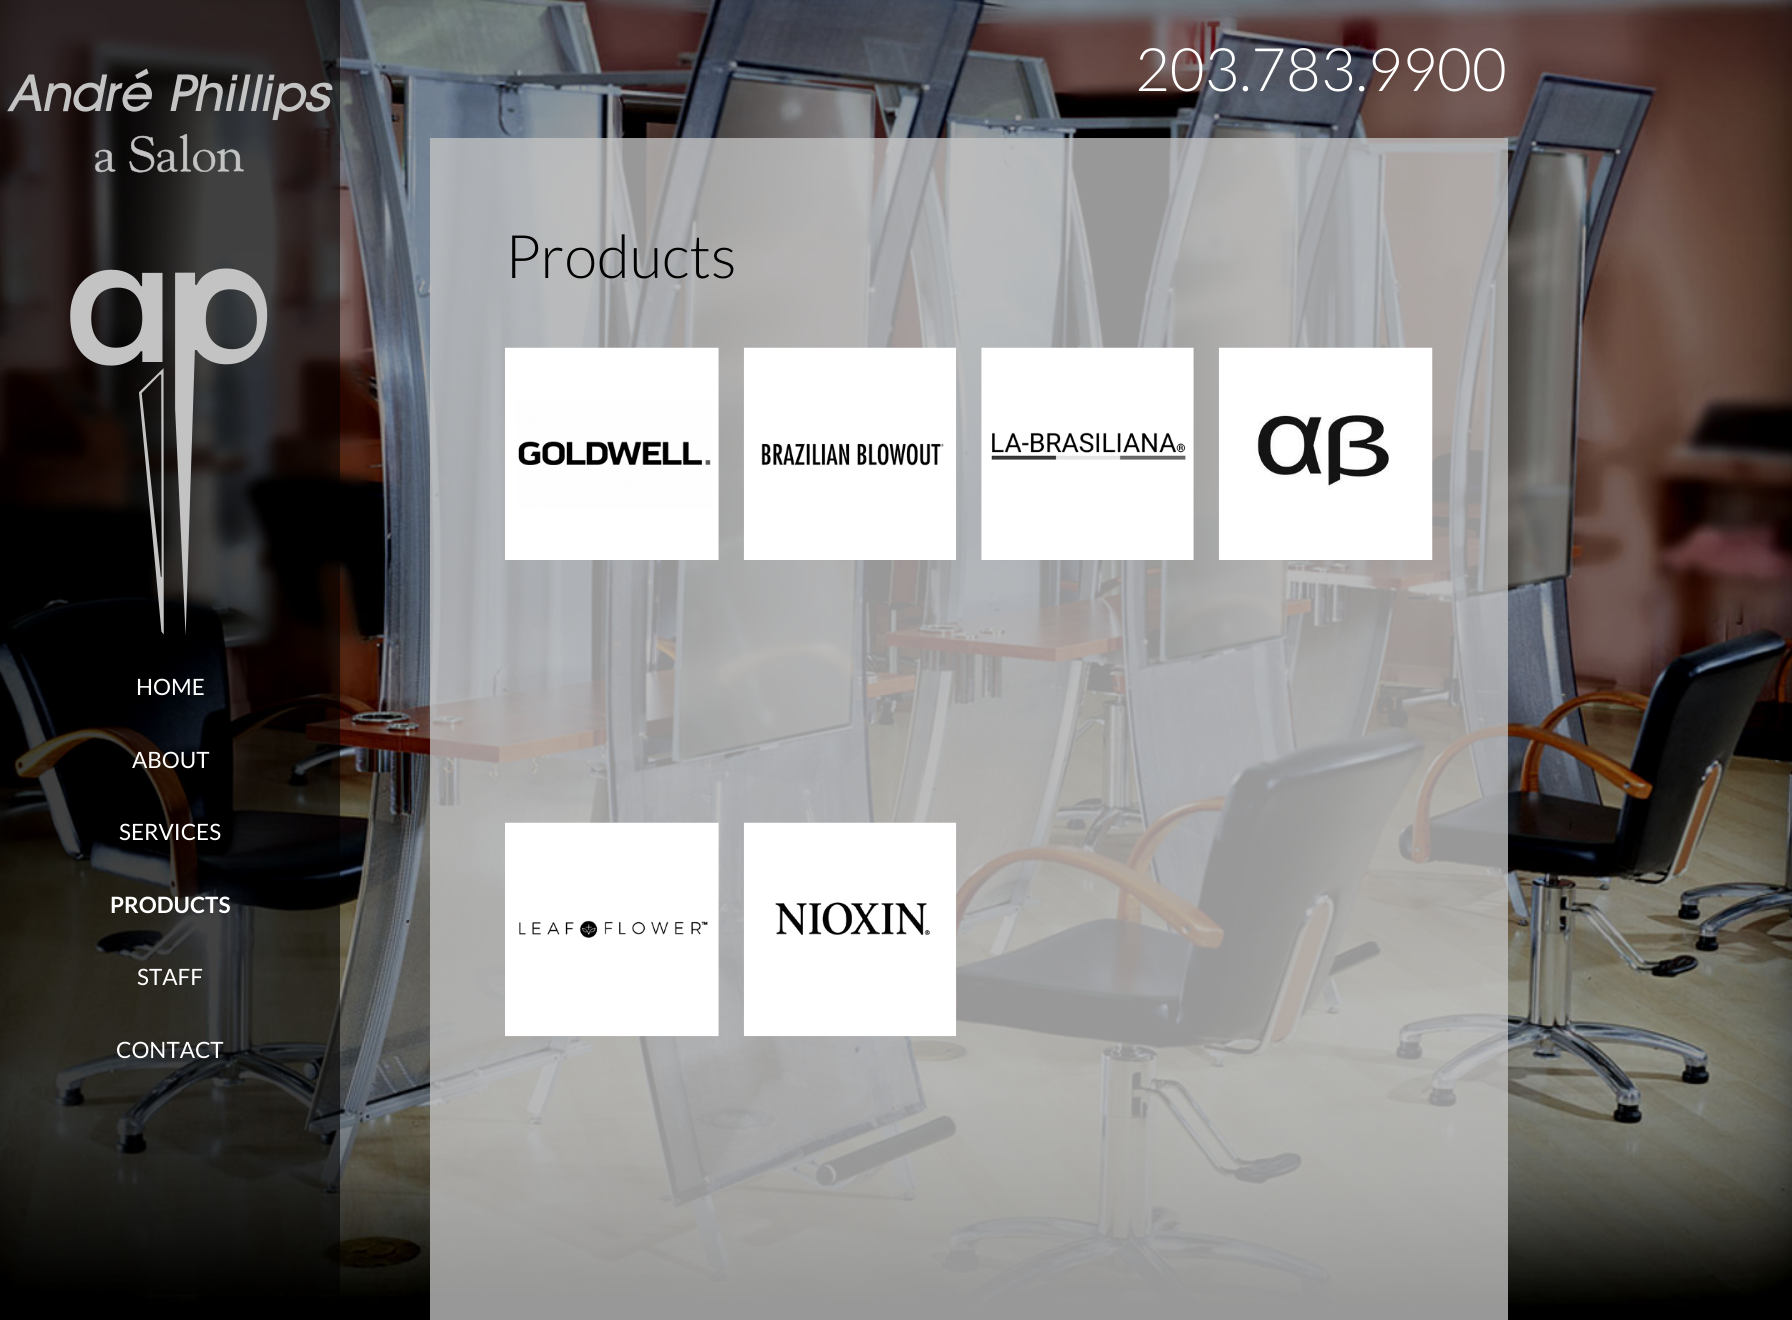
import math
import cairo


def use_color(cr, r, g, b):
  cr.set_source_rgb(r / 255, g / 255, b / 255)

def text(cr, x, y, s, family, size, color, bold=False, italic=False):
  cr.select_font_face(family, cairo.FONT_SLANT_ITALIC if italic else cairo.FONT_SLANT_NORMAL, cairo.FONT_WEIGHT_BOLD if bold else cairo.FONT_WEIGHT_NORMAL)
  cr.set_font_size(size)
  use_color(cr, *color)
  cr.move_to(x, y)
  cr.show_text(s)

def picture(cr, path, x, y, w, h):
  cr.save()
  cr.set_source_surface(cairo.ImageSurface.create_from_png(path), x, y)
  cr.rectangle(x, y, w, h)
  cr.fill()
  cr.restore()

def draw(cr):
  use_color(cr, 0, 0, 0)
  cr.paint()
  picture(cr, "img_01.png", 0, 0, 1792, 1309)
  cr.set_source_rgba(0.765, 0.765, 0.765, 0.78)
  cr.rectangle(430, 138, 1078, 210)
  cr.fill()
  cr.rectangle(430, 348, 1078, 972)
  cr.fill()
  picture(cr, "img_02.png", 505, 347, 214, 213)
  picture(cr, "img_03.png", 743, 347, 214, 213)
  picture(cr, "img_04.png", 981, 347, 213, 213)
  picture(cr, "img_05.png", 1218, 347, 215, 213)
  picture(cr, "img_06.png", 505, 822, 214, 215)
  picture(cr, "img_07.png", 743, 822, 214, 215)
  cr.set_source_rgba(0, 0, 0, 0.6)
  cr.rectangle(0, 0, 340, 1294)
  cr.fill()
  picture(cr, "img_08.png", 7, 68, 326, 567)
  text(cr, 1135, 91, "203.783.9900", "Lato Light", 60, (255, 255, 255))
  text(cr, 505, 278, "Products", "Lato Light", 60, (0, 0, 0))
  text(cr, 136, 695, "HOME", "Lato", 22.5, (255, 255, 255))
  text(cr, 132, 768, "ABOUT", "Lato", 22.5, (255, 255, 255))
  text(cr, 119, 840, "SERVICES", "Lato", 22.5, (255, 255, 255))
  text(cr, 110, 913, "PRODUCTS", "Lato", 22.5, (255, 255, 255), bold=True)
  text(cr, 137, 985, "STAFF", "Lato", 22.5, (255, 255, 255))
  text(cr, 116, 1058, "CONTACT", "Lato", 22.5, (255, 255, 255))


surface = cairo.ImageSurface(cairo.FORMAT_RGB24, 1792, 1320)
cr = cairo.Context(surface)
options = cairo.FontOptions()
options.set_hint_metrics(cairo.HINT_METRICS_OFF)
options.set_hint_style(cairo.HINT_STYLE_NONE)
cr.set_font_options(options)
cr.set_miter_limit(4)
draw(cr)
surface.write_to_png("out.png")
